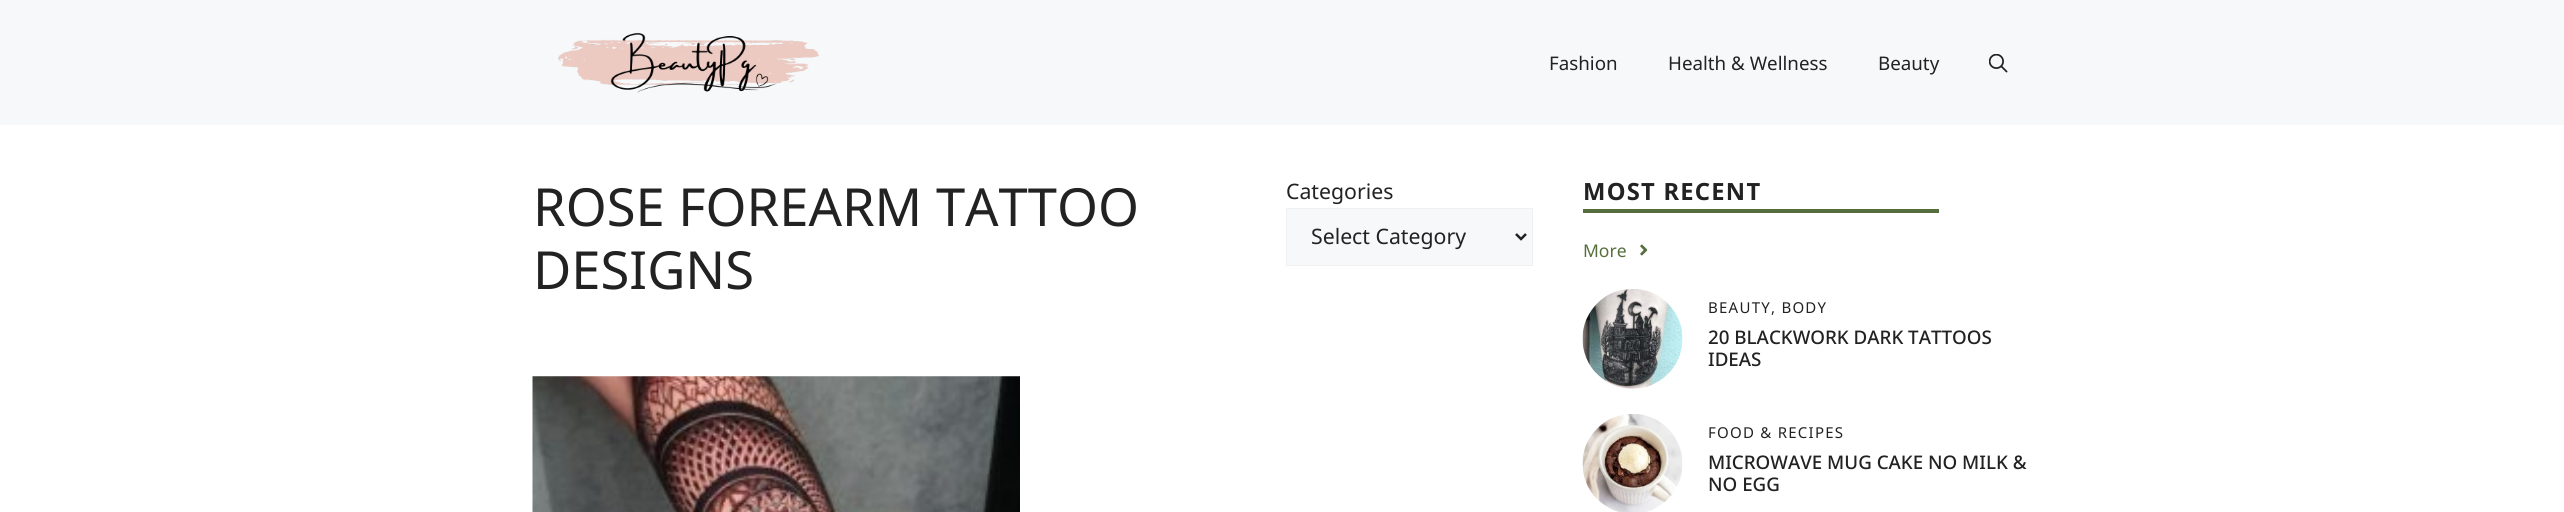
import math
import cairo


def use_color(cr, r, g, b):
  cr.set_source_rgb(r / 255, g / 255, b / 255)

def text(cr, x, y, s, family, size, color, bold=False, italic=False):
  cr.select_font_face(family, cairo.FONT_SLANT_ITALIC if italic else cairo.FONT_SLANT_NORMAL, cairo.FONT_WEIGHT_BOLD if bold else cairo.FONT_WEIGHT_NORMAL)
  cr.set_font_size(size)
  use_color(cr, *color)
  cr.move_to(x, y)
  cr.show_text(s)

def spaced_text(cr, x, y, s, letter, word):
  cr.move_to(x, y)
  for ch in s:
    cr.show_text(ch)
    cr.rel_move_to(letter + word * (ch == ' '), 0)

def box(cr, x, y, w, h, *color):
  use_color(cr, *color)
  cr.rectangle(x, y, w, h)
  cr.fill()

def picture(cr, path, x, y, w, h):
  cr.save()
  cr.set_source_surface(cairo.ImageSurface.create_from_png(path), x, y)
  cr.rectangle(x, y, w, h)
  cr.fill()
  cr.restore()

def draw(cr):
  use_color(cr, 255, 255, 255)
  cr.paint()
  box(cr, 0, 0, 2564, 125, 247, 248, 249)
  picture(cr, "img_01.png", 558, 33, 262, 60)
  picture(cr, "img_02.png", 1989, 54, 19, 19)
  cr.rectangle(1286.5, 208.5, 246, 57)
  cr.fill_preserve()
  use_color(cr, 240, 240, 240)
  cr.set_line_width(1)
  cr.stroke()
  cr.new_path()
  cr.move_to(1516, 234)
  cr.line_to(1521, 239)
  cr.line_to(1526, 234)
  use_color(cr, 34, 34, 34)
  cr.set_line_width(2.5)
  cr.stroke()
  picture(cr, "img_03.png", 532, 376, 488, 136)
  box(cr, 1583, 209, 356, 4, 86, 110, 61)
  picture(cr, "img_04.png", 1640, 244, 8, 12)
  picture(cr, "img_05.png", 1582, 289, 101, 100)
  picture(cr, "img_06.png", 1582, 414, 101, 98)
  text(cr, 1549, 70, "Fashion", "Noto Sans", 18.75, (34, 34, 34))
  text(cr, 1668, 70, "Health & Wellness", "Noto Sans", 18.75, (34, 34, 34))
  text(cr, 1878, 70, "Beauty", "Noto Sans", 18.75, (34, 34, 34))
  text(cr, 533, 226, "ROSE FOREARM TATTOO", "Noto Sans", 52.5, (34, 34, 34))
  text(cr, 533, 289, "DESIGNS", "Noto Sans", 52.5, (34, 34, 34))
  text(cr, 1286, 199, "Categories", "Noto Sans", 21.25, (34, 34, 34))
  text(cr, 1311, 244, "Select Category", "Noto Sans", 21.25, (34, 34, 34))
  cr.select_font_face("Noto Sans", cairo.FONT_SLANT_NORMAL, cairo.FONT_WEIGHT_BOLD)
  cr.set_font_size(23.75)
  spaced_text(cr, 1583, 200, "MOST RECENT", 1.25, 0)
  text(cr, 1583, 257, "More", "Noto Sans", 17.5, (86, 110, 61))
  cr.set_font_size(15)
  use_color(cr, 34, 34, 34)
  spaced_text(cr, 1708, 313, "BEAUTY, BODY", 1.25, 0)
  text(cr, 1708, 344, "20 BLACKWORK DARK TATTOOS", "Noto Sans Medium", 18.75, (34, 34, 34))
  text(cr, 1708, 366, "IDEAS", "Noto Sans Medium", 18.75, (34, 34, 34))
  cr.select_font_face("Noto Sans")
  cr.set_font_size(15)
  spaced_text(cr, 1708, 438, "FOOD & RECIPES", 1.25, 0)
  text(cr, 1708, 469, "MICROWAVE MUG CAKE NO MILK &", "Noto Sans Medium", 18.75, (34, 34, 34))
  text(cr, 1708, 491, "NO EGG", "Noto Sans Medium", 18.75, (34, 34, 34))


surface = cairo.ImageSurface(cairo.FORMAT_RGB24, 2564, 512)
cr = cairo.Context(surface)
options = cairo.FontOptions()
options.set_hint_metrics(cairo.HINT_METRICS_OFF)
options.set_hint_style(cairo.HINT_STYLE_NONE)
cr.set_font_options(options)
cr.set_miter_limit(4)
draw(cr)
surface.write_to_png("out.png")
